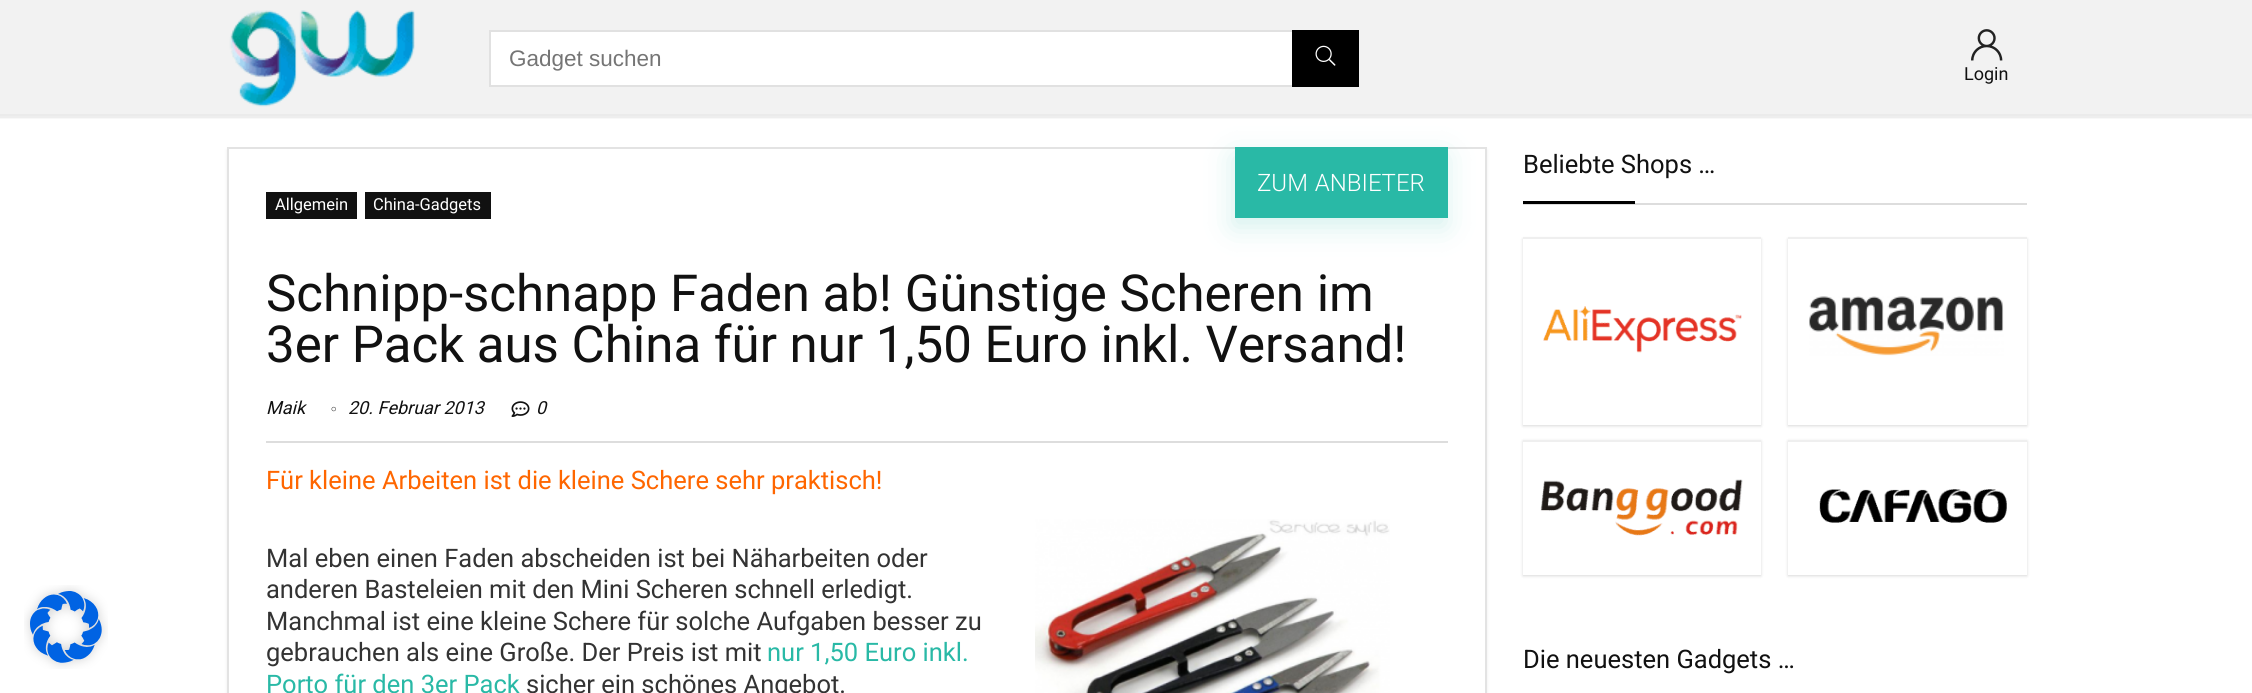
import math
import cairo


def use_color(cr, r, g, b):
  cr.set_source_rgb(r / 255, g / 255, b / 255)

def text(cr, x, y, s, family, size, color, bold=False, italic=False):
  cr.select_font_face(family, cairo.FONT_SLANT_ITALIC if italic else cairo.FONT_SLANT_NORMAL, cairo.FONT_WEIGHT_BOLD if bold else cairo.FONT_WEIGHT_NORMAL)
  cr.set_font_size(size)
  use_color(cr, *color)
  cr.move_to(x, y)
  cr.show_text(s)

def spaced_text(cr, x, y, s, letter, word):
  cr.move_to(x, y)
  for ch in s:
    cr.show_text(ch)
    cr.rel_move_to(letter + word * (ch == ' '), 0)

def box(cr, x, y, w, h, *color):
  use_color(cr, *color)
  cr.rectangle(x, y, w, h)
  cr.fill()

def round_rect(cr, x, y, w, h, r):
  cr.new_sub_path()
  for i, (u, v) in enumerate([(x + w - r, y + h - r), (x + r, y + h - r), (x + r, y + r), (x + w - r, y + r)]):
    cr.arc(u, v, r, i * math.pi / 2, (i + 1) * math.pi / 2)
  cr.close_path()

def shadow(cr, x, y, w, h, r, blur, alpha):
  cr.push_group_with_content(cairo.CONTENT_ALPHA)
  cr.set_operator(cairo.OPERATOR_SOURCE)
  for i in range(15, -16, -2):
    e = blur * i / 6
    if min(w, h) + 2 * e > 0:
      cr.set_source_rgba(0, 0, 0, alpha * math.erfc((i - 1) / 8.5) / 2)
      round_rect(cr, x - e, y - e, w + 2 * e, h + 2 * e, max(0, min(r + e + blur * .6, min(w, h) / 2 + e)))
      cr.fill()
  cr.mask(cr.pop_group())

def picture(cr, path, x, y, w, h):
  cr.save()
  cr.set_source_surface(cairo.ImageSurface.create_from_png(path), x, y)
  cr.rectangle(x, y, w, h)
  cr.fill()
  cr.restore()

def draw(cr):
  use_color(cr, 255, 255, 255)
  cr.paint()
  picture(cr, "img_01.png", 24, 585, 84, 84)
  use_color(cr, 236, 236, 236)
  shadow(cr, 227, 150, 1260, 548, 0, 1.5, 1)
  use_color(cr, 255, 255, 255)
  cr.rectangle(228, 148, 1258, 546)
  cr.fill_preserve()
  use_color(cr, 227, 227, 227)
  cr.stroke()
  use_color(cr, 41, 185, 166)
  shadow(cr, 1233, 156, 213, 71, 0, 14, 0.2)
  box(cr, 0, 0, 2252, 116, 242, 242, 242)
  picture(cr, "img_02.png", 229, 10, 186, 97)
  box(cr, 491, 32, 801, 53, 255, 255, 255)
  cr.rectangle(490, 31, 868, 55)
  use_color(cr, 225, 225, 225)
  cr.stroke()
  box(cr, 1292, 30, 67, 57, 0, 0, 0)
  picture(cr, "img_03.png", 1315, 45, 21, 21)
  picture(cr, "img_04.png", 1971, 29, 32, 32)
  cr.rectangle(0, 115, 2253, 3)
  cr.set_source_rgba(0, 0, 0, 0.03)
  cr.stroke()
  box(cr, 0, 116, 2252, 2, 238, 238, 238)
  box(cr, 1235, 147, 213, 71, 41, 185, 166)
  box(cr, 266, 192, 91, 27, 17, 17, 17)
  box(cr, 365, 192, 126, 27, 17, 17, 17)
  picture(cr, "img_05.png", 331, 406, 5, 6)
  picture(cr, "img_06.png", 511, 401, 19, 16)
  box(cr, 266, 441, 1182, 2, 221, 221, 221)
  picture(cr, "img_07.png", 1035, 519, 355, 174)
  box(cr, 1523, 203, 504, 2, 221, 221, 221)
  box(cr, 1523, 201, 112, 3, 0, 0, 0)
  use_color(cr, 0, 0, 0)
  shadow(cr, 1523, 239, 238, 187, 0, 1.5, 0.15)
  box(cr, 1523, 239, 238, 186, 255, 255, 255)
  box(cr, 1523, 237, 238, 2, 239, 239, 239)
  picture(cr, "img_08.png", 1543, 306, 199, 47)
  use_color(cr, 0, 0, 0)
  shadow(cr, 1788, 239, 239, 187, 0, 1.5, 0.15)
  box(cr, 1788, 239, 239, 186, 255, 255, 255)
  box(cr, 1788, 237, 239, 2, 239, 239, 239)
  picture(cr, "img_09.png", 1809, 296, 195, 60)
  use_color(cr, 0, 0, 0)
  shadow(cr, 1523, 441, 238, 135, 0, 1.5, 0.15)
  box(cr, 1523, 442, 238, 133, 255, 255, 255)
  box(cr, 1523, 440, 238, 2, 239, 239, 239)
  picture(cr, "img_10.png", 1540, 479, 203, 57)
  use_color(cr, 0, 0, 0)
  shadow(cr, 1788, 441, 239, 135, 0, 1.5, 0.15)
  box(cr, 1788, 442, 239, 133, 255, 255, 255)
  box(cr, 1788, 440, 239, 2, 239, 239, 239)
  picture(cr, "img_11.png", 1819, 489, 188, 34)
  text(cr, 509, 66, "Gadget suchen", "Liberation Sans", 22.5, (117, 117, 117))
  text(cr, 1964, 80, "Login", "Roboto", 18, (17, 17, 17))
  cr.select_font_face("Roboto Light")
  cr.set_font_size(24)
  use_color(cr, 255, 255, 255)
  spaced_text(cr, 1257, 191, "ZUM ANBIETER", 0, 1)
  text(cr, 275, 210, "Allgemein", "Roboto", 16.5, (255, 255, 255))
  text(cr, 373, 210, "China-Gadgets", "Roboto", 16.5, (255, 255, 255))
  text(cr, 266, 311, "Schnipp-schnapp Faden ab! Günstige Scheren im", "Roboto", 51, (17, 17, 17))
  text(cr, 266, 362, "3er Pack aus China für nur 1,50 Euro inkl. Versand!", "Roboto", 51, (17, 17, 17))
  text(cr, 266, 414, "Maik", "Roboto", 18, (17, 17, 17), italic=True)
  text(cr, 348, 414, "20. Februar 2013", "Roboto", 18, (17, 17, 17), italic=True)
  text(cr, 536, 414, "0", "Roboto", 18, (17, 17, 17), italic=True)
  text(cr, 266, 489, "Für kleine Arbeiten ist die kleine Schere sehr praktisch!", "Roboto", 25.5, (255, 102, 0))
  text(cr, 266, 567, "Mal eben einen Faden abscheiden ist bei Näharbeiten oder", "Roboto", 25.5, (51, 51, 51))
  text(cr, 266, 598, "anderen Basteleien mit den Mini Scheren schnell erledigt.", "Roboto", 25.5, (51, 51, 51))
  text(cr, 266, 630, "Manchmal ist eine kleine Schere für solche Aufgaben besser zu", "Roboto", 25.5, (51, 51, 51))
  text(cr, 266, 661, "gebrauchen als eine Große. Der Preis ist mit", "Roboto", 25.5, (51, 51, 51))
  text(cr, 767, 661, "nur 1,50 Euro inkl.", "Roboto", 25.5, (41, 185, 166))
  text(cr, 266, 693, "Porto für den 3er Pack", "Roboto", 25.5, (41, 185, 166))
  text(cr, 526, 693, "sicher ein schönes Angebot.", "Roboto", 25.5, (51, 51, 51))
  text(cr, 1523, 173, "Beliebte Shops …", "Roboto", 25.5, (17, 17, 17))
  text(cr, 1523, 668, "Die neuesten Gadgets …", "Roboto", 25.5, (17, 17, 17))


surface = cairo.ImageSurface(cairo.FORMAT_RGB24, 2252, 693)
cr = cairo.Context(surface)
options = cairo.FontOptions()
options.set_hint_metrics(cairo.HINT_METRICS_OFF)
options.set_hint_style(cairo.HINT_STYLE_NONE)
cr.set_font_options(options)
cr.set_miter_limit(4)
draw(cr)
surface.write_to_png("out.png")
